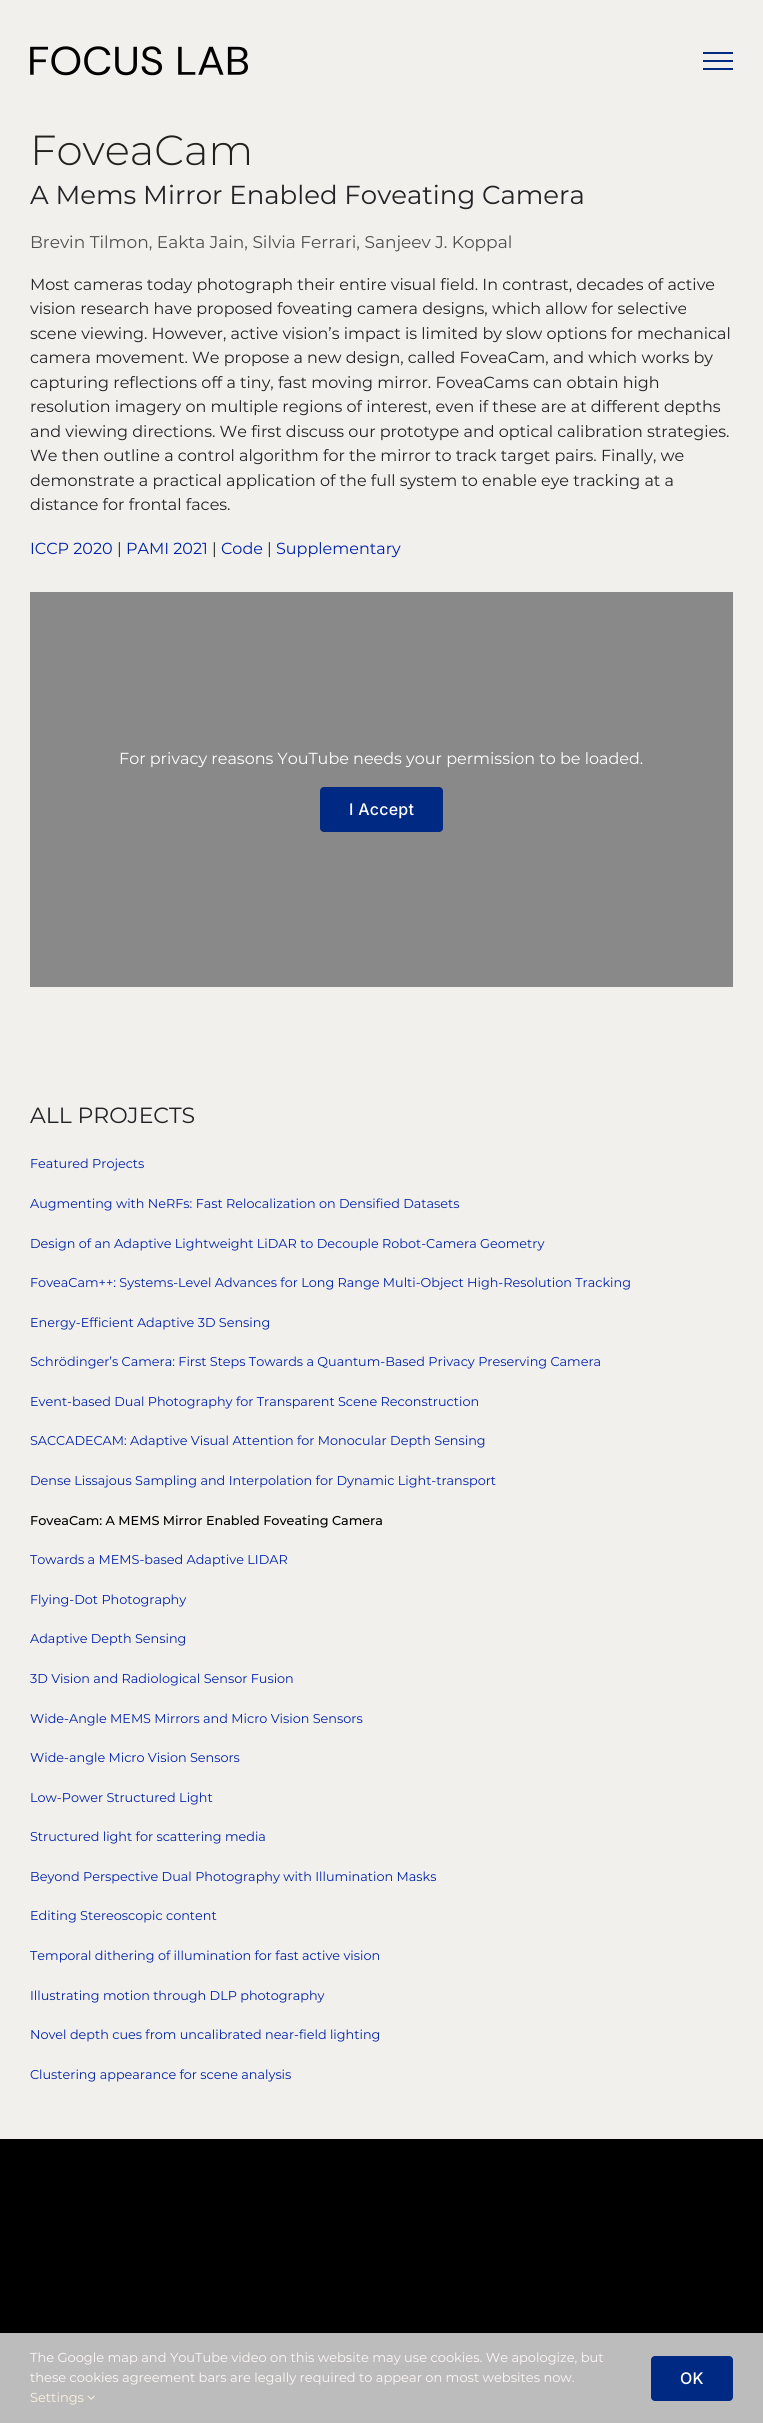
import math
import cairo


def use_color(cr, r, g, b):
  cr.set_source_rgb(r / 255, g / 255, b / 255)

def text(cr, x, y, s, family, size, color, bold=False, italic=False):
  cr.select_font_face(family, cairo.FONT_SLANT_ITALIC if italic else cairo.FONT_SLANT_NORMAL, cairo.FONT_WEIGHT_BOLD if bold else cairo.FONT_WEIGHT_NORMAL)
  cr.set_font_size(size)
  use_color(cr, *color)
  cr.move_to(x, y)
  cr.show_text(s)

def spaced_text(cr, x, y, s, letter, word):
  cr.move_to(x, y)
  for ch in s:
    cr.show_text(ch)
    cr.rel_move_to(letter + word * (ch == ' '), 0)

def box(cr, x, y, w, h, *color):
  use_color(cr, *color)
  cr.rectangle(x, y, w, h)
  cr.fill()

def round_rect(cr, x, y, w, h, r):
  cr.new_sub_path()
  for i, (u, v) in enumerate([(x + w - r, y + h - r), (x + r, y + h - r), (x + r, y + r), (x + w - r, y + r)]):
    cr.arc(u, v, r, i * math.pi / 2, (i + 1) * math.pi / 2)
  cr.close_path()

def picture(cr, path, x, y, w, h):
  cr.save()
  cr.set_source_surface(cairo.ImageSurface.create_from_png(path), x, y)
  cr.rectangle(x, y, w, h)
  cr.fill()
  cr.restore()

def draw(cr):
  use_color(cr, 0, 0, 0)
  cr.paint()
  box(cr, 0, 0, 763, 2139, 242, 240, 237)
  picture(cr, "img_01.png", 30, 46, 218, 30)
  box(cr, 703, 52, 30, 2, 0, 41, 132)
  box(cr, 703, 60, 30, 2, 0, 41, 132)
  box(cr, 703, 68, 30, 2, 0, 41, 132)
  box(cr, 30, 592, 703, 395, 137, 137, 137)
  use_color(cr, 0, 41, 132)
  round_rect(cr, 320, 787, 123, 45, 4)
  cr.fill()
  box(cr, 0, 2333, 763, 90, 188, 188, 188)
  picture(cr, "img_02.png", 87, 2395, 8, 5)
  use_color(cr, 0, 41, 132)
  round_rect(cr, 651, 2356, 82, 45, 4)
  cr.fill()
  text(cr, 30, 165, "FoveaCam", "Montserrat Light", 42, (33, 33, 32))
  text(cr, 30, 204, "A Mems Mirror Enabled Foveating Camera", "Montserrat", 26, (33, 35, 38))
  text(cr, 30, 248, "Brevin Tilmon, Eakta Jain, Silvia Ferrari, Sanjeev J. Koppal", "Montserrat", 17, (79, 79, 79))
  text(cr, 30, 290, "Most cameras today photograph their entire visual field. In contrast, decades of active", "Montserrat", 16, (33, 35, 38))
  text(cr, 30, 314, "vision research have proposed foveating camera designs, which allow for selective", "Montserrat", 16, (33, 35, 38))
  text(cr, 30, 339, "scene viewing. However, active vision’s impact is limited by slow options for mechanical", "Montserrat", 16, (33, 35, 38))
  text(cr, 30, 363, "camera movement. We propose a new design, called FoveaCam, and which works by", "Montserrat", 16, (33, 35, 38))
  text(cr, 30, 388, "capturing reflections off a tiny, fast moving mirror. FoveaCams can obtain high", "Montserrat", 16, (33, 35, 38))
  text(cr, 30, 412, "resolution imagery on multiple regions of interest, even if these are at different depths", "Montserrat", 16, (33, 35, 38))
  text(cr, 30, 437, "and viewing directions. We first discuss our prototype and optical calibration strategies.", "Montserrat", 16, (33, 35, 38))
  text(cr, 30, 461, "We then outline a control algorithm for the mirror to track target pairs. Finally, we", "Montserrat", 16, (33, 35, 38))
  text(cr, 30, 486, "demonstrate a practical application of the full system to enable eye tracking at a", "Montserrat", 16, (33, 35, 38))
  text(cr, 30, 510, "distance for frontal faces.", "Montserrat", 16, (33, 35, 38))
  text(cr, 30, 554, "ICCP 2020", "Montserrat", 16, (0, 33, 165))
  text(cr, 117, 554, "|", "Montserrat", 16, (33, 35, 38))
  text(cr, 126, 554, "PAMI 2021", "Montserrat", 16, (0, 33, 165))
  text(cr, 212, 554, "|", "Montserrat", 16, (33, 35, 38))
  text(cr, 221, 554, "Code", "Montserrat", 16, (0, 33, 165))
  text(cr, 267, 554, "|", "Montserrat", 16, (33, 35, 38))
  text(cr, 276, 554, "Supplementary", "Montserrat", 16, (0, 33, 165))
  text(cr, 119, 764, "For privacy reasons YouTube needs your permission to be loaded.", "Montserrat", 16, (255, 255, 255))
  cr.select_font_face("Inter Medium")
  spaced_text(cr, 349, 815, "I Accept", 0.25, 0)
  text(cr, 30, 1123, "ALL PROJECTS", "Montserrat", 22, (33, 35, 38))
  text(cr, 30, 1168, "Featured Projects", "Montserrat", 12.8, (0, 33, 165))
  text(cr, 30, 1208, "Augmenting with NeRFs: Fast Relocalization on Densified Datasets", "Montserrat", 12.8, (0, 33, 165))
  text(cr, 30, 1248, "Design of an Adaptive Lightweight LiDAR to Decouple Robot-Camera Geometry", "Montserrat", 12.8, (0, 33, 165))
  text(cr, 30, 1287, "FoveaCam++: Systems-Level Advances for Long Range Multi-Object High-Resolution Tracking", "Montserrat", 12.8, (0, 33, 165))
  text(cr, 30, 1327, "Energy-Efficient Adaptive 3D Sensing", "Montserrat", 12.8, (0, 33, 165))
  text(cr, 30, 1366, "Schrödinger’s Camera: First Steps Towards a Quantum-Based Privacy Preserving Camera", "Montserrat", 12.8, (0, 33, 165))
  text(cr, 30, 1406, "Event-based Dual Photography for Transparent Scene Reconstruction", "Montserrat", 12.8, (0, 33, 165))
  text(cr, 30, 1445, "SACCADECAM: Adaptive Visual Attention for Monocular Depth Sensing", "Montserrat", 12.8, (0, 33, 165))
  text(cr, 30, 1485, "Dense Lissajous Sampling and Interpolation for Dynamic Light-transport", "Montserrat", 12.8, (0, 33, 165))
  text(cr, 30, 1525, "FoveaCam: A MEMS Mirror Enabled Foveating Camera", "Montserrat Medium", 12.8, (0, 0, 0))
  text(cr, 30, 1564, "Towards a MEMS-based Adaptive LIDAR", "Montserrat", 12.8, (0, 33, 165))
  text(cr, 30, 1604, "Flying-Dot Photography", "Montserrat", 12.8, (0, 33, 165))
  text(cr, 30, 1643, "Adaptive Depth Sensing", "Montserrat", 12.8, (0, 33, 165))
  text(cr, 30, 1683, "3D Vision and Radiological Sensor Fusion", "Montserrat", 12.8, (0, 33, 165))
  text(cr, 30, 1723, "Wide-Angle MEMS Mirrors and Micro Vision Sensors", "Montserrat", 12.8, (0, 33, 165))
  text(cr, 30, 1762, "Wide-angle Micro Vision Sensors", "Montserrat", 12.8, (0, 33, 165))
  text(cr, 30, 1802, "Low-Power Structured Light", "Montserrat", 12.8, (0, 33, 165))
  text(cr, 30, 1841, "Structured light for scattering media", "Montserrat", 12.8, (0, 33, 165))
  text(cr, 30, 1881, "Beyond Perspective Dual Photography with Illumination Masks", "Montserrat", 12.8, (0, 33, 165))
  text(cr, 30, 1920, "Editing Stereoscopic content", "Montserrat", 12.8, (0, 33, 165))
  text(cr, 30, 1960, "Temporal dithering of illumination for fast active vision", "Montserrat", 12.8, (0, 33, 165))
  text(cr, 30, 2000, "Illustrating motion through DLP photography", "Montserrat", 12.8, (0, 33, 165))
  text(cr, 30, 2039, "Novel depth cues from uncalibrated near-field lighting", "Montserrat", 12.8, (0, 33, 165))
  text(cr, 30, 2079, "Clustering appearance for scene analysis", "Montserrat", 12.8, (0, 33, 165))
  text(cr, 30, 2362, "The Google map and YouTube video on this website may use cookies. We apologize, but", "Montserrat", 13, (255, 247, 247))
  text(cr, 30, 2382, "these cookies agreement bars are legally required to appear on most websites now.", "Montserrat", 13, (255, 247, 247))
  text(cr, 30, 2402, "Settings", "Montserrat", 13, (252, 241, 224))
  cr.select_font_face("Inter Medium")
  cr.set_font_size(16)
  use_color(cr, 255, 255, 255)
  spaced_text(cr, 680, 2384, "OK", 0.25, 0)


surface = cairo.ImageSurface(cairo.FORMAT_RGB24, 763, 2423)
cr = cairo.Context(surface)
options = cairo.FontOptions()
options.set_hint_metrics(cairo.HINT_METRICS_OFF)
options.set_hint_style(cairo.HINT_STYLE_NONE)
cr.set_font_options(options)
cr.set_miter_limit(4)
draw(cr)
surface.write_to_png("out.png")
